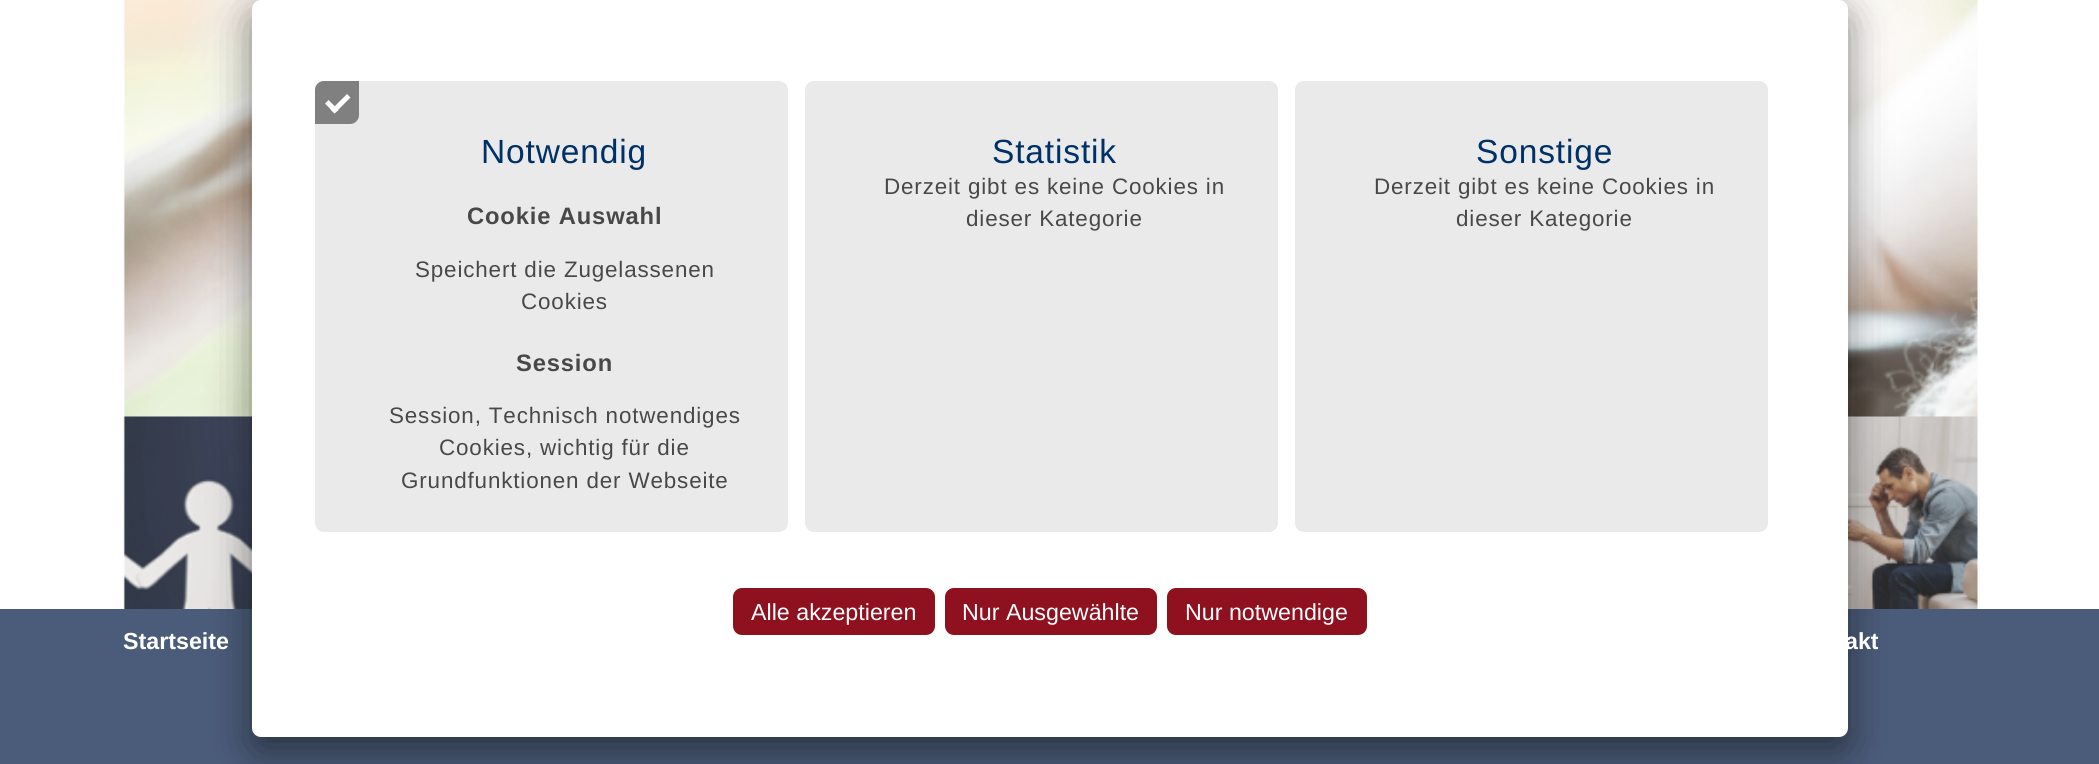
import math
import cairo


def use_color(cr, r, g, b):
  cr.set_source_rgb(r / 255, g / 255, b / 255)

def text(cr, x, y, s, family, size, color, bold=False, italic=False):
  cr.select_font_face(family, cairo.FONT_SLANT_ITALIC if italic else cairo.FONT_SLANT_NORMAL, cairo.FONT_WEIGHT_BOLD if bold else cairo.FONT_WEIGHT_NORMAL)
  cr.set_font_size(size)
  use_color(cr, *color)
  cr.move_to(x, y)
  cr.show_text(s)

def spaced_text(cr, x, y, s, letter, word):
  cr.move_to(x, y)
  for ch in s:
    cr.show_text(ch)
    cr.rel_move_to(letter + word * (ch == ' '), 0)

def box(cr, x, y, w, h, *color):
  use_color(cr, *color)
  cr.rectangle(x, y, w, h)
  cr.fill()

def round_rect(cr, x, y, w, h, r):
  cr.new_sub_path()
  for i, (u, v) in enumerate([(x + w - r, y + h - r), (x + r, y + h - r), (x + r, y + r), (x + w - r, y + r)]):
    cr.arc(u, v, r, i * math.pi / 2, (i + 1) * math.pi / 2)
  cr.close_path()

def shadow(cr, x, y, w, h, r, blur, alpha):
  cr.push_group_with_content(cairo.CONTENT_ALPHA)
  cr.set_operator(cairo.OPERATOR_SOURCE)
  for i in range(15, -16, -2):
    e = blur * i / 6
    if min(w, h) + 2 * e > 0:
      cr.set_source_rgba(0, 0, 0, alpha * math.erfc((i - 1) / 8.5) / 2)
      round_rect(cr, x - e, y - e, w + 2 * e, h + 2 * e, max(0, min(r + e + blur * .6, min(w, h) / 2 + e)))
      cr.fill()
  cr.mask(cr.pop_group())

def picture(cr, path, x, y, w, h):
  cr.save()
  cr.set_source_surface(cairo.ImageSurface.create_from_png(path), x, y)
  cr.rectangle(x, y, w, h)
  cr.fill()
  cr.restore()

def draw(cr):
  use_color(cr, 75, 92, 122)
  cr.paint()
  box(cr, 0, 0, 2099, 609, 255, 255, 255)
  picture(cr, "img_01.png", 123, 0, 1855, 609)
  use_color(cr, 0, 0, 0)
  shadow(cr, 252, 18, 1596, 736, 9, 22, 0.3)
  shadow(cr, 252, 9, 1596, 737, 9, 17.5, 0.22)
  use_color(cr, 255, 255, 255)
  round_rect(cr, 252, 0, 1596, 737, 9)
  cr.fill()
  use_color(cr, 234, 234, 234)
  round_rect(cr, 315, 81, 473, 451, 9)
  cr.fill()
  use_color(cr, 128, 128, 128)
  cr.new_path()
  cr.move_to(324, 81)
  cr.line_to(359, 81)
  cr.line_to(359, 115)
  cr.curve_to(359, 120, 355, 124, 350, 124)
  cr.line_to(315, 124)
  cr.line_to(315, 90)
  cr.curve_to(315, 85, 319, 81, 324, 81)
  cr.close_path()
  cr.fill()
  use_color(cr, 255, 255, 255)
  cr.new_path()
  cr.move_to(347, 94)
  cr.line_to(350.5, 97.5)
  cr.line_to(334.5, 113.5)
  cr.line_to(331, 110)
  cr.close_path()
  cr.fill()
  cr.new_path()
  cr.move_to(328.5, 100)
  cr.line_to(338.5, 110)
  cr.line_to(334.5, 113.5)
  cr.line_to(325, 103.5)
  cr.close_path()
  cr.fill()
  use_color(cr, 234, 234, 234)
  round_rect(cr, 805, 81, 473, 451, 9)
  cr.fill()
  round_rect(cr, 1295, 81, 473, 451, 9)
  cr.fill()
  use_color(cr, 143, 16, 30)
  round_rect(cr, 735, 590, 198, 43, 7)
  cr.fill_preserve()
  cr.set_line_width(4)
  cr.stroke()
  round_rect(cr, 947, 590, 208, 43, 7)
  cr.fill_preserve()
  cr.stroke()
  round_rect(cr, 1169, 590, 196, 43, 7)
  cr.fill_preserve()
  cr.stroke()
  cr.select_font_face("Liberation Sans")
  cr.set_font_size(33.5)
  use_color(cr, 0, 48, 104)
  spaced_text(cr, 481, 163, "Notwendig", 0.85, 0)
  cr.select_font_face("Liberation Sans", cairo.FONT_SLANT_NORMAL, cairo.FONT_WEIGHT_BOLD)
  cr.set_font_size(23.75)
  use_color(cr, 72, 72, 72)
  spaced_text(cr, 467, 224, "Cookie Auswahl", 0.85, 0)
  cr.select_font_face("Liberation Sans")
  cr.set_font_size(22.4)
  spaced_text(cr, 415, 277, "Speichert die Zugelassenen", 0.85, 0)
  spaced_text(cr, 521, 309, "Cookies", 0.85, 0)
  cr.select_font_face("Liberation Sans", cairo.FONT_SLANT_NORMAL, cairo.FONT_WEIGHT_BOLD)
  cr.set_font_size(23.75)
  spaced_text(cr, 516, 371, "Session", 0.85, 0)
  cr.select_font_face("Liberation Sans")
  cr.set_font_size(22.4)
  spaced_text(cr, 389, 423, "Session, Technisch notwendiges", 0.85, 0)
  spaced_text(cr, 439, 455, "Cookies, wichtig für die", 0.85, 0)
  spaced_text(cr, 401, 488, "Grundfunktionen der Webseite", 0.85, 0)
  cr.set_font_size(33.5)
  use_color(cr, 0, 48, 104)
  spaced_text(cr, 992, 163, "Statistik", 0.85, 0)
  cr.set_font_size(22.4)
  use_color(cr, 72, 72, 72)
  spaced_text(cr, 884, 194, "Derzeit gibt es keine Cookies in", 0.85, 0)
  spaced_text(cr, 966, 226, "dieser Kategorie", 0.85, 0)
  cr.set_font_size(33.5)
  use_color(cr, 0, 48, 104)
  spaced_text(cr, 1476, 163, "Sonstige", 0.85, 0)
  cr.set_font_size(22.4)
  use_color(cr, 72, 72, 72)
  spaced_text(cr, 1374, 194, "Derzeit gibt es keine Cookies in", 0.85, 0)
  spaced_text(cr, 1456, 226, "dieser Kategorie", 0.85, 0)
  text(cr, 751, 620, "Alle akzeptieren", "Liberation Sans", 23.25, (255, 255, 255))
  text(cr, 962, 620, "Nur Ausgewählte", "Liberation Sans", 23.25, (255, 255, 255))
  text(cr, 1185, 620, "Nur notwendige", "Liberation Sans", 23.25, (255, 255, 255))
  text(cr, 123, 649, "Startseite", "Liberation Sans", 23.25, (255, 255, 255), bold=True)
  cr.save()
  cr.rectangle(1792, 628, 86, 44)
  cr.clip()
  text(cr, 1845, 649, "akt", "Liberation Sans", 23.25, (255, 255, 255), bold=True)
  cr.restore()


surface = cairo.ImageSurface(cairo.FORMAT_RGB24, 2099, 764)
cr = cairo.Context(surface)
options = cairo.FontOptions()
options.set_hint_metrics(cairo.HINT_METRICS_OFF)
options.set_hint_style(cairo.HINT_STYLE_NONE)
cr.set_font_options(options)
cr.set_miter_limit(4)
draw(cr)
surface.write_to_png("out.png")
